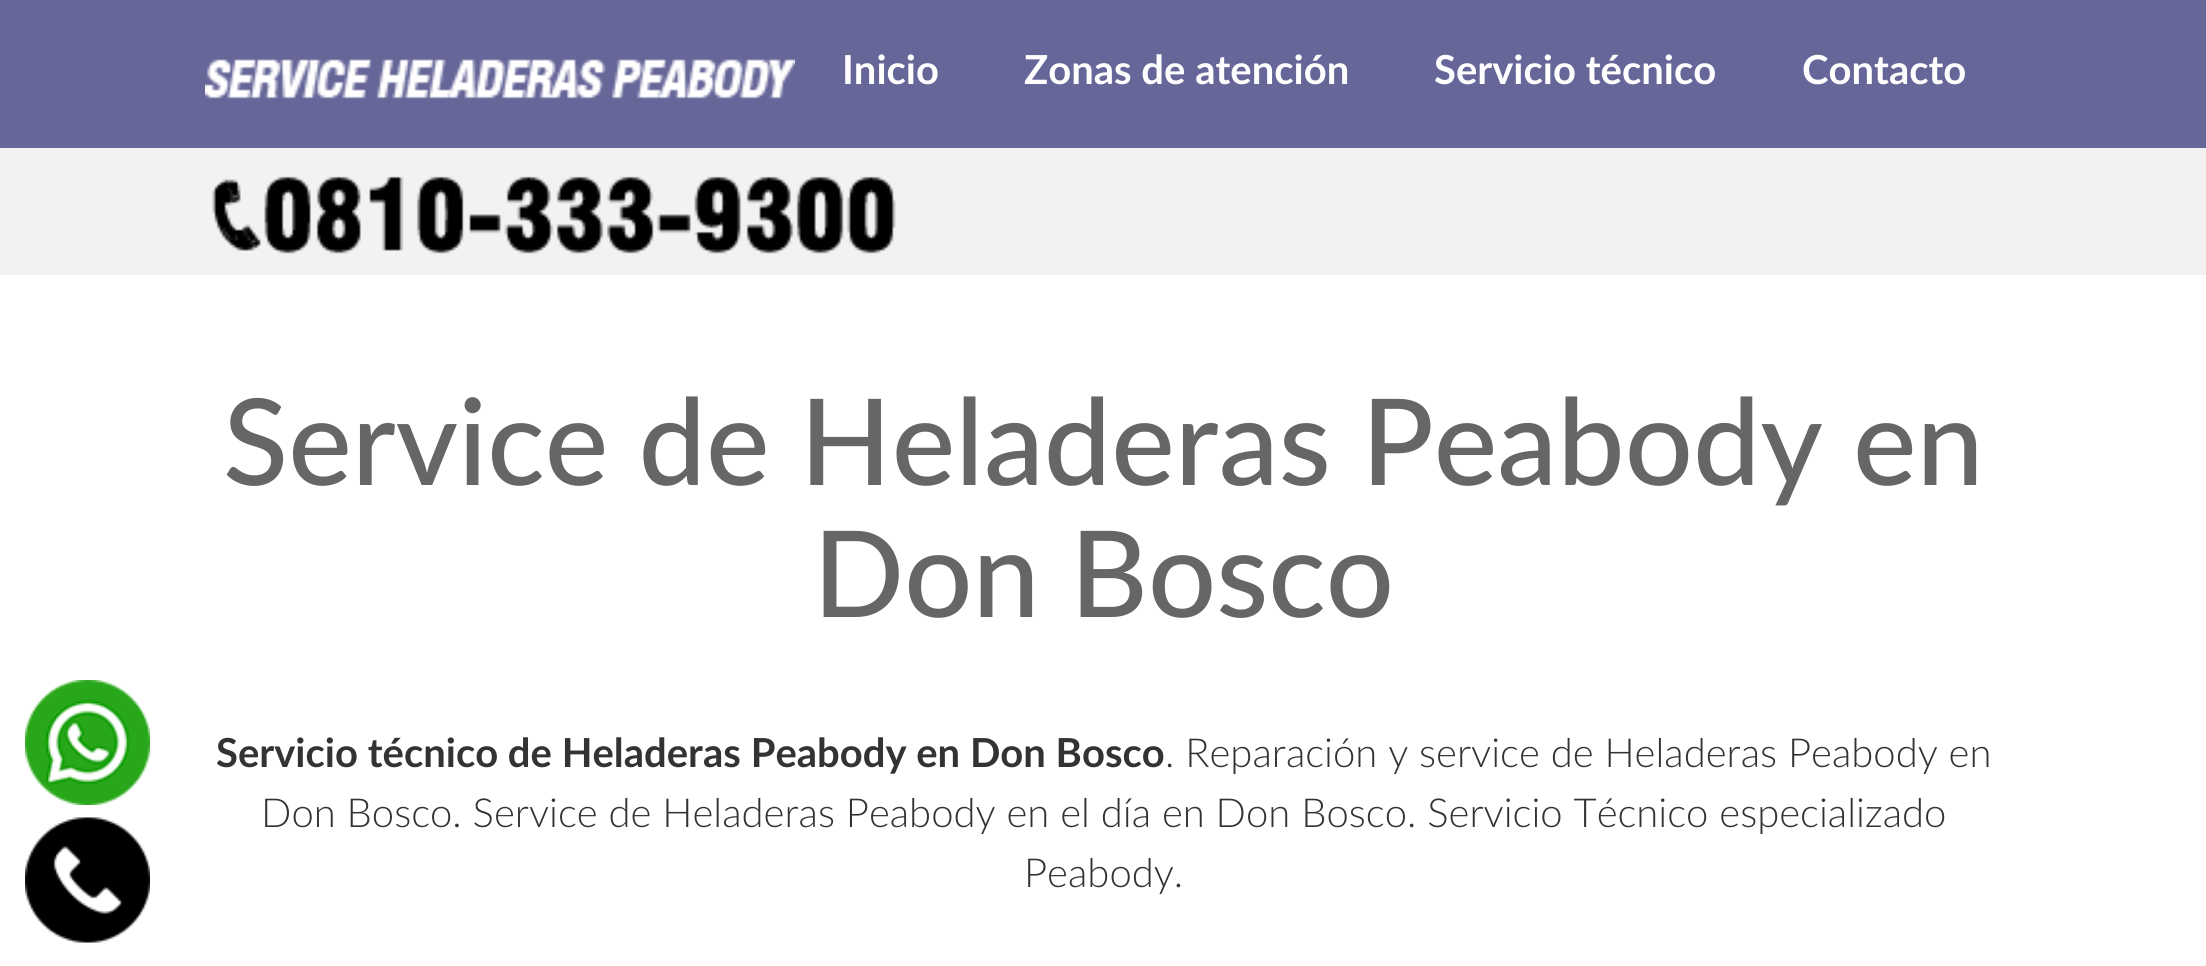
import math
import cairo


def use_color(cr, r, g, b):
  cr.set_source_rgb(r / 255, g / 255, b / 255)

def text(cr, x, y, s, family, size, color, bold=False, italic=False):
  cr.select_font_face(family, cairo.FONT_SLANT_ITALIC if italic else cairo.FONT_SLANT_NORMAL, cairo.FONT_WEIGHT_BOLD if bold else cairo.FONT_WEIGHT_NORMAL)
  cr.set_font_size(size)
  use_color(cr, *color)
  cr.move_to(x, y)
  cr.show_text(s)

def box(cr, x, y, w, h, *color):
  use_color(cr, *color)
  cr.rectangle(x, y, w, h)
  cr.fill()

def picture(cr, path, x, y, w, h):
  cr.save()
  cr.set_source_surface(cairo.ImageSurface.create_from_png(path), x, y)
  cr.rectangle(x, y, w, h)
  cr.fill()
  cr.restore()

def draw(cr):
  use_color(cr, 255, 255, 255)
  cr.paint()
  box(cr, 0, 0, 2206, 148, 102, 102, 153)
  picture(cr, "img_01.png", 205, 59, 590, 40)
  box(cr, 0, 148, 2206, 127, 242, 242, 242)
  picture(cr, "img_02.png", 212, 176, 684, 78)
  picture(cr, "img_03.png", 25, 680, 125, 125)
  picture(cr, "img_04.png", 25, 817, 125, 126)
  text(cr, 842, 84, "Inicio", "Lato", 40, (255, 255, 255), bold=True)
  text(cr, 1024, 84, "Zonas de atención", "Lato", 40, (255, 255, 255), bold=True)
  text(cr, 1434, 84, "Servicio técnico", "Lato", 40, (255, 255, 255), bold=True)
  text(cr, 1802, 84, "Contacto", "Lato", 40, (255, 255, 255), bold=True)
  text(cr, 223, 485, "Service de Heladeras Peabody en", "Lato Medium", 120, (102, 102, 102))
  text(cr, 813, 617, "Don Bosco", "Lato Medium", 120, (102, 102, 102))
  text(cr, 216, 767, "Servicio técnico de Heladeras Peabody en Don Bosco", "Lato", 40, (51, 51, 51), bold=True)
  text(cr, 1165, 767, ". Reparación y service de Heladeras Peabody en", "Lato Light", 40, (51, 51, 51))
  text(cr, 261, 827, "Don Bosco. Service de Heladeras Peabody en el día en Don Bosco. Servicio Técnico especializado", "Lato Light", 40, (51, 51, 51))
  text(cr, 1024, 887, "Peabody.", "Lato Light", 40, (51, 51, 51))


surface = cairo.ImageSurface(cairo.FORMAT_RGB24, 2206, 966)
cr = cairo.Context(surface)
options = cairo.FontOptions()
options.set_hint_metrics(cairo.HINT_METRICS_OFF)
options.set_hint_style(cairo.HINT_STYLE_NONE)
cr.set_font_options(options)
cr.set_miter_limit(4)
draw(cr)
surface.write_to_png("out.png")
